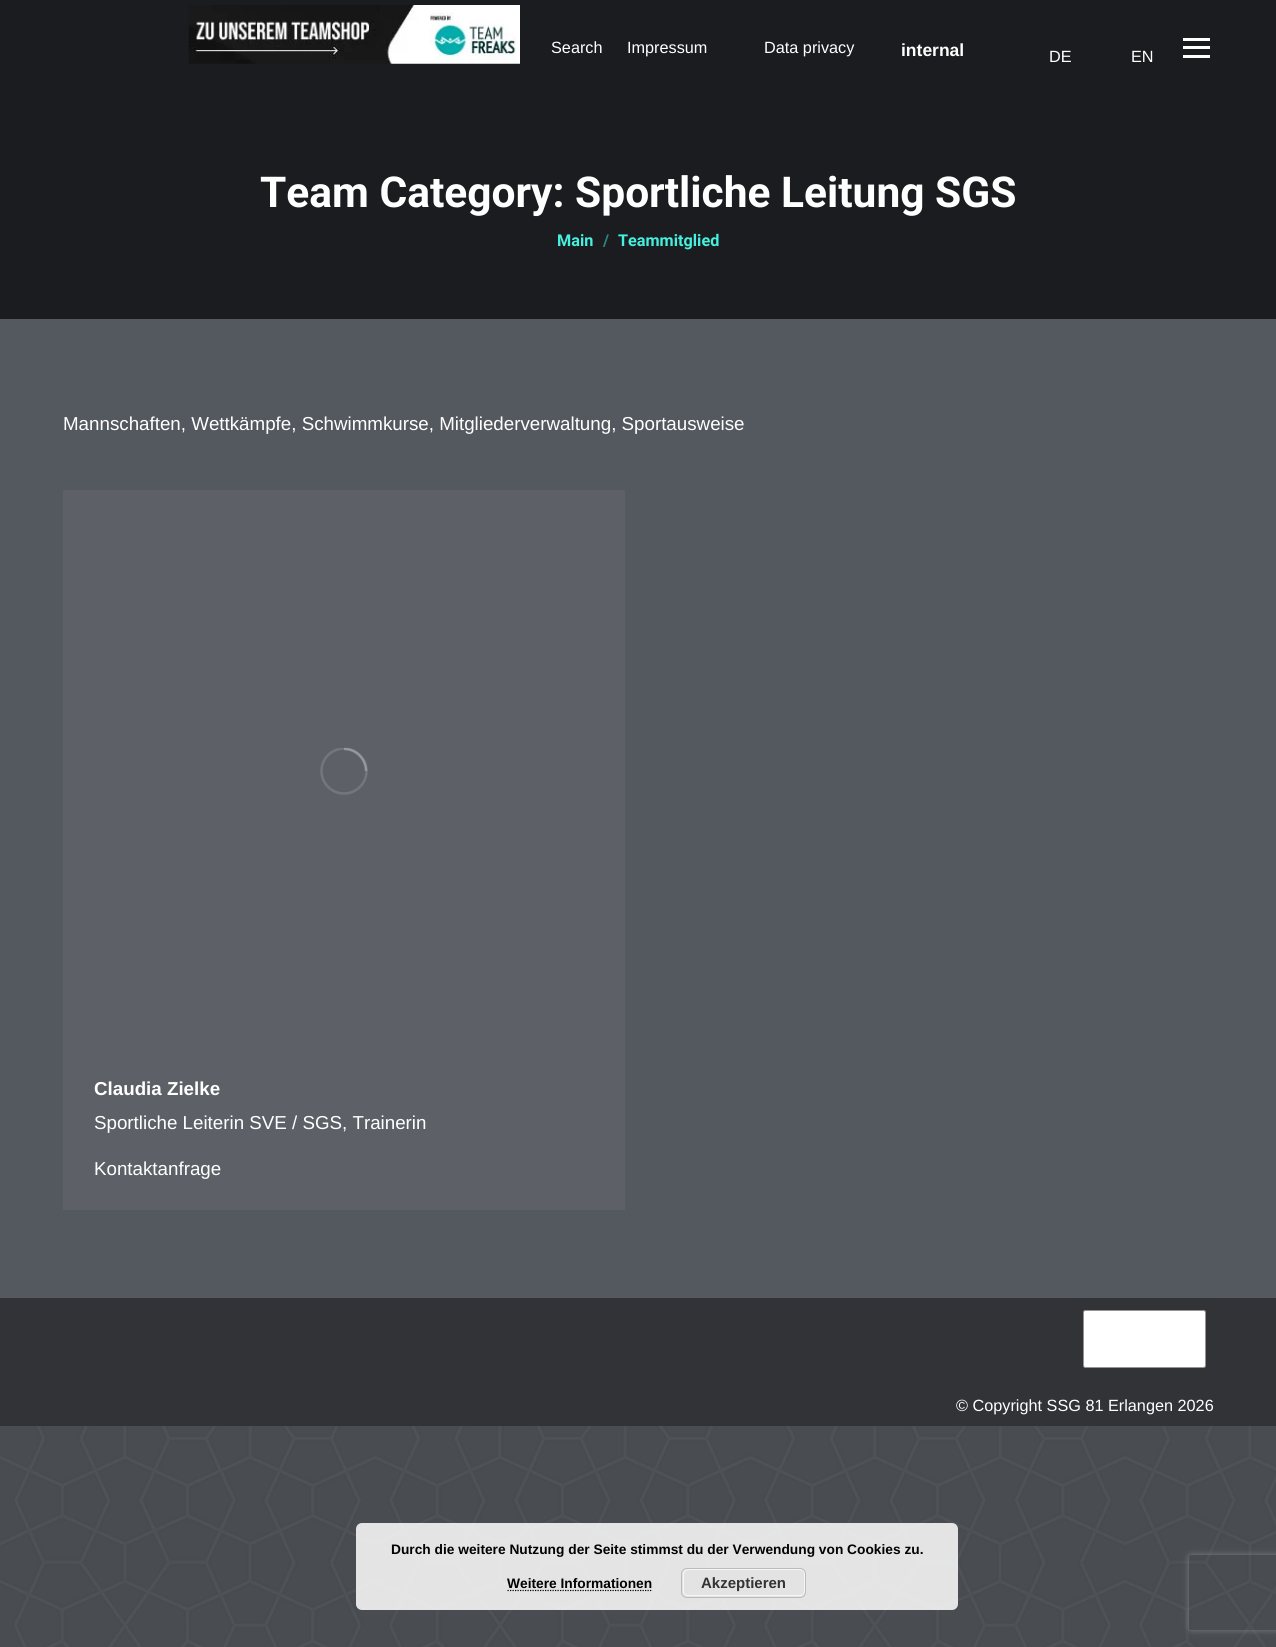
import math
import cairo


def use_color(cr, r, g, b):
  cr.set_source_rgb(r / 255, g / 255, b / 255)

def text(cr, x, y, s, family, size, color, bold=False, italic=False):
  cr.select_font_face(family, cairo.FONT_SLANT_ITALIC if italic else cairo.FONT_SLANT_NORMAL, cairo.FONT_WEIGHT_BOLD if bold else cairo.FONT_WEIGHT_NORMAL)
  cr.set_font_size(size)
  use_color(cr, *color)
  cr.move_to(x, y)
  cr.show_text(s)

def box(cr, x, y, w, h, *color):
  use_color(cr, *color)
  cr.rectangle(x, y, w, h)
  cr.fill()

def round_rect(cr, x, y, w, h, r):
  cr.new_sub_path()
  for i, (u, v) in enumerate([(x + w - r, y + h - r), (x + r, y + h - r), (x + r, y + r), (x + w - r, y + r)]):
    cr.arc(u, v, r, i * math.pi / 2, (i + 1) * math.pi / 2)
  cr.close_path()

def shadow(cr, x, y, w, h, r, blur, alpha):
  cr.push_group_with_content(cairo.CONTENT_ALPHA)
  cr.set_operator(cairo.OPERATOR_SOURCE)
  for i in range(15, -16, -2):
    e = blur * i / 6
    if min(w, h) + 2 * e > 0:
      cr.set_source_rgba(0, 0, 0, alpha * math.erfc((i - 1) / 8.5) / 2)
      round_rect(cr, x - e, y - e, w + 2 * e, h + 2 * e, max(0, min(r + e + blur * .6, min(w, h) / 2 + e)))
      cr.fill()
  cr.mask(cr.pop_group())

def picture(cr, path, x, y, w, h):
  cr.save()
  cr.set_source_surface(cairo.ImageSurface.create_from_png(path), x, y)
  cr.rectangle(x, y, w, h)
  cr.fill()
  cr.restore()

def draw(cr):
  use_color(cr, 84, 89, 95)
  cr.paint()
  picture(cr, "img_01.png", 0, 1426, 1276, 221)
  box(cr, 0, 0, 1276, 319, 26, 28, 32)
  picture(cr, "img_02.png", 188, 5, 332, 59)
  box(cr, 1183, 38, 27, 3, 255, 255, 255)
  box(cr, 1183, 46, 27, 3, 255, 255, 255)
  box(cr, 1183, 55, 27, 3, 255, 255, 255)
  box(cr, 63, 490, 562, 720, 93, 97, 103)
  cr.save()
  cr.rectangle(320, 748, 48, 47)
  cr.clip()
  cr.arc(344, 771, 22.5, 0, 2 * math.pi)
  use_color(cr, 115, 119, 124)
  cr.set_line_width(2.5)
  cr.stroke()
  cr.restore()
  cr.new_path()
  cr.move_to(366, 771)
  cr.curve_to(366, 759, 356, 749, 344, 749)
  cr.set_source_rgba(1, 1, 1, 0.25)
  cr.set_line_width(2.5)
  cr.stroke()
  box(cr, 0, 1298, 1276, 128, 49, 51, 55)
  use_color(cr, 255, 255, 255)
  round_rect(cr, 1083.5, 1310.5, 122, 57, 2)
  cr.fill_preserve()
  use_color(cr, 148, 148, 148)
  cr.set_line_width(1)
  cr.stroke()
  cr.set_source_rgba(1, 1, 1, 0.85)
  round_rect(cr, 356, 1523, 602, 87, 6)
  cr.fill()
  cr.new_path()
  cr.move_to(507.5, 1590.5)
  cr.line_to(652.5, 1590.5)
  use_color(cr, 2, 2, 2)
  cr.set_line_width(1.2)
  cr.set_dash([1.25, 1.25])
  cr.stroke()
  use_color(cr, 227, 227, 227)
  round_rect(cr, 681, 1568, 125, 30, 6)
  cr.fill()
  round_rect(cr, 683.5, 1569.5, 121, 26, 4.5)
  use_color(cr, 246, 246, 246)
  cr.set_line_width(1)
  cr.set_dash([])
  cr.stroke()
  round_rect(cr, 681.5, 1568.5, 124, 29, 5.5)
  use_color(cr, 187, 187, 187)
  cr.stroke()
  cr.save()
  cr.set_fill_rule(cairo.FILL_RULE_EVEN_ODD)
  cr.new_path()
  cr.move_to(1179, 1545)
  cr.line_to(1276, 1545)
  cr.line_to(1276, 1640)
  cr.line_to(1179, 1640)
  cr.close_path()
  cr.move_to(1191.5, 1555)
  cr.line_to(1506.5, 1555)
  cr.curve_to(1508, 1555, 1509, 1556, 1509, 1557.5)
  cr.line_to(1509, 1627.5)
  cr.curve_to(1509, 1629, 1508, 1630, 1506.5, 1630)
  cr.line_to(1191.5, 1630)
  cr.curve_to(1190, 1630, 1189, 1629, 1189, 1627.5)
  cr.line_to(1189, 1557.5)
  cr.curve_to(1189, 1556, 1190, 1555, 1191.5, 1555)
  cr.close_path()
  cr.clip()
  use_color(cr, 128, 128, 128)
  shadow(cr, 1189, 1555, 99, 75, 2.5, 3, 1)
  cr.restore()
  text(cr, 551, 53, "Search", "Liberation Sans", 16.25, (255, 255, 255))
  text(cr, 627, 53, "Impressum", "Liberation Sans", 16.25, (255, 255, 255))
  text(cr, 764, 53, "Data privacy", "Liberation Sans", 16.25, (255, 255, 255))
  text(cr, 901, 56, "internal", "Liberation Sans", 17.5, (255, 255, 255), bold=True)
  text(cr, 1049, 62, "DE", "Liberation Sans", 16.25, (255, 255, 255))
  text(cr, 1131, 62, "EN", "Liberation Sans", 16.25, (255, 255, 255))
  text(cr, 260, 207, "Team Category: Sportliche Leitung SGS", "Roboto", 42.5, (255, 255, 255), bold=True)
  text(cr, 557, 246, "Main", "Roboto", 16.25, (69, 240, 223), bold=True)
  text(cr, 603, 246, "/", "Roboto", 16.25, (48, 134, 128), bold=True)
  text(cr, 618, 246, "Teammitglied", "Roboto", 16.25, (69, 240, 223), bold=True)
  text(cr, 63, 430, "Mannschaften, Wettkämpfe, Schwimmkurse, Mitgliederverwaltung, Sportausweise", "Liberation Sans", 18.75, (255, 255, 255))
  text(cr, 94, 1095, "Claudia Zielke", "Liberation Sans", 18.75, (255, 255, 255), bold=True)
  text(cr, 94, 1129, "Sportliche Leiterin SVE / SGS, Trainerin", "Liberation Sans", 18.75, (255, 255, 255))
  text(cr, 94, 1175, "Kontaktanfrage", "Liberation Sans", 18.75, (255, 255, 255))
  text(cr, 956, 1411, "© Copyright SSG 81 Erlangen 2026", "Liberation Sans", 16.25, (255, 255, 255))
  text(cr, 391, 1554, "Durch die weitere Nutzung der Seite stimmst du der Verwendung von Cookies zu.", "Liberation Sans", 13.75, (2, 2, 2), bold=True)
  text(cr, 507, 1588, "Weitere Informationen", "Liberation Sans", 13.75, (2, 2, 2), bold=True)
  text(cr, 701, 1588, "Akzeptieren", "Liberation Sans", 15, (51, 51, 51), bold=True)


surface = cairo.ImageSurface(cairo.FORMAT_RGB24, 1276, 1647)
cr = cairo.Context(surface)
options = cairo.FontOptions()
options.set_hint_metrics(cairo.HINT_METRICS_OFF)
options.set_hint_style(cairo.HINT_STYLE_NONE)
cr.set_font_options(options)
cr.set_miter_limit(4)
draw(cr)
surface.write_to_png("out.png")
